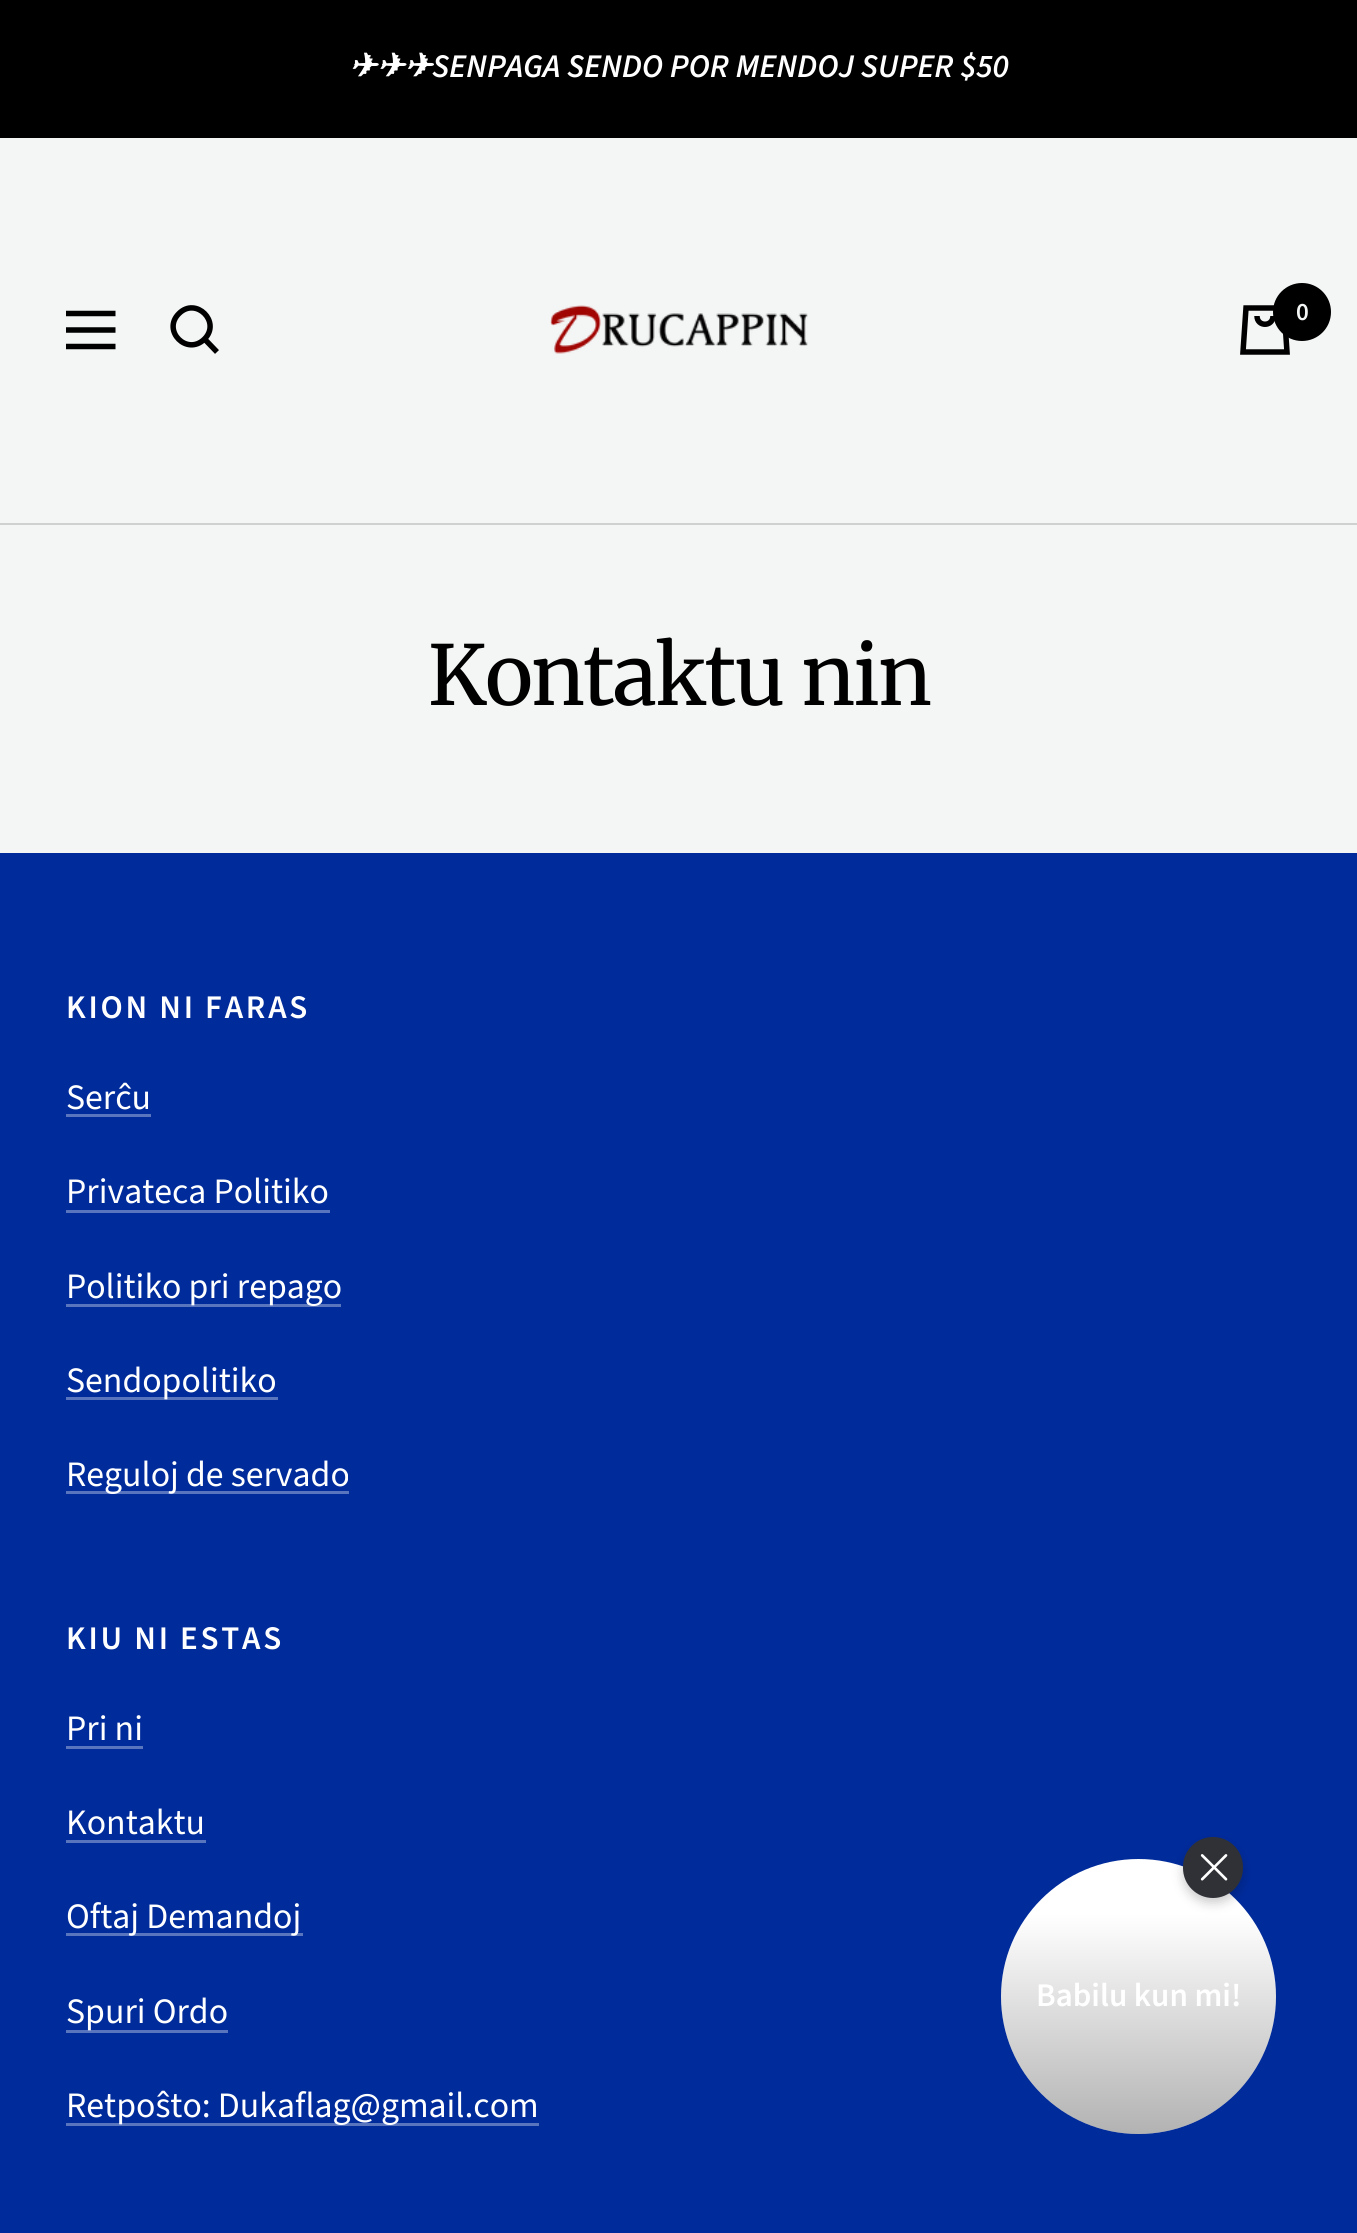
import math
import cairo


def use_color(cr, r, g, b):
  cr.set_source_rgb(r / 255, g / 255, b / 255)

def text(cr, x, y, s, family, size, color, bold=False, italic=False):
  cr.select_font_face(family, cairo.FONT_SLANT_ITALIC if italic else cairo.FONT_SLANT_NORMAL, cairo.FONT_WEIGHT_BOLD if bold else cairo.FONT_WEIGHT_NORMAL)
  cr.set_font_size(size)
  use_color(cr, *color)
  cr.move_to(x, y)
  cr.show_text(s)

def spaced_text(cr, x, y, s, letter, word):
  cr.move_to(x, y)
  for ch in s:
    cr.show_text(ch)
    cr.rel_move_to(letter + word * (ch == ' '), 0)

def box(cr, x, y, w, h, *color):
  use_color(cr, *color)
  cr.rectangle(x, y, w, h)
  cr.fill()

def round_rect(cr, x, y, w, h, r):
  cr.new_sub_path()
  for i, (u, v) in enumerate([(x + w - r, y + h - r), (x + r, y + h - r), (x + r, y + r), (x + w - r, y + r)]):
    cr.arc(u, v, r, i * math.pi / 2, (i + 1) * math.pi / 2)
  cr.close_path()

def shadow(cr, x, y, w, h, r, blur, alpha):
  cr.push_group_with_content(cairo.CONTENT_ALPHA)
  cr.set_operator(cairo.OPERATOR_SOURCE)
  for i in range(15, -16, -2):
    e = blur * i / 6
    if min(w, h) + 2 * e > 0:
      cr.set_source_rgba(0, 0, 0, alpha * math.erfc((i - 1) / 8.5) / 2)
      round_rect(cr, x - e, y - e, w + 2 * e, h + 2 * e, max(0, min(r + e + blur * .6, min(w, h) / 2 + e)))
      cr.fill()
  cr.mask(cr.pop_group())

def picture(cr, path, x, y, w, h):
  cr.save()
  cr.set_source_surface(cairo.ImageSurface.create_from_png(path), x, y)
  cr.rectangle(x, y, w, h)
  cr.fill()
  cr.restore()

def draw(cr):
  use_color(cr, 244, 245, 245)
  cr.paint()
  box(cr, 0, 0, 1357, 138, 0, 0, 0)
  use_color(cr, 207, 208, 208)
  cr.new_path()
  cr.move_to(0, 522)
  cr.line_to(0, 525)
  cr.line_to(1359, 525)
  cr.line_to(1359, 140)
  cr.line_to(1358, 140)
  cr.line_to(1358, 522)
  cr.close_path()
  cr.fill()
  box(cr, 0, 522, 1357, 1, 244, 245, 245)
  cr.new_path()
  cr.move_to(66, 313.5)
  cr.line_to(115.5, 313.5)
  cr.move_to(66, 346.5)
  cr.line_to(115.5, 346.5)
  cr.close_path()
  cr.move_to(66, 330)
  cr.line_to(115.5, 330)
  cr.close_path()
  use_color(cr, 0, 0, 0)
  cr.set_line_width(5.5)
  cr.stroke()
  cr.new_path()
  cr.move_to(204.5, 339)
  cr.curve_to(221.5, 322, 196, 296.5, 179, 313.5)
  cr.curve_to(161.5, 330.5, 187, 356.5, 204.5, 339)
  cr.close_path()
  cr.move_to(204.5, 339)
  cr.line_to(217, 352)
  cr.stroke()
  picture(cr, "img_01.png", 550, 305, 258, 49)
  cr.new_path()
  cr.move_to(1246, 308)
  cr.line_to(1284, 308)
  cr.line_to(1287, 352)
  cr.line_to(1243, 352)
  cr.close_path()
  cr.move_to(1257, 316)
  cr.curve_to(1257, 327, 1273, 327, 1273, 316)
  cr.stroke()
  cr.arc(1302, 312, 29, 0, 2 * math.pi)
  cr.fill()
  box(cr, 0, 853, 1357, 1380, 0, 43, 155)
  box(cr, 66, 1114, 85, 3, 89, 117, 190)
  box(cr, 66, 1210, 264, 3, 89, 117, 190)
  box(cr, 66, 1304, 275, 3, 89, 117, 190)
  box(cr, 66, 1397, 212, 3, 89, 117, 190)
  box(cr, 66, 1491, 283, 3, 89, 117, 190)
  box(cr, 66, 1746, 77, 3, 89, 117, 190)
  box(cr, 66, 1840, 140, 3, 89, 117, 190)
  box(cr, 66, 1933, 237, 3, 89, 117, 190)
  box(cr, 66, 2030, 162, 3, 89, 117, 190)
  box(cr, 66, 2123, 473, 3, 89, 117, 190)
  use_color(cr, 255, 255, 255)
  cr.arc(1138.5, 1996.5, 137.5, 0, 2 * math.pi)
  cr.fill()
  gradient = cairo.LinearGradient(1139, 1859, 1139, 2134)
  gradient.add_color_stop_rgba(0.2, 0, 0, 0, 0)
  gradient.add_color_stop_rgba(1, 0, 0, 0, 0.3)
  cr.set_source(gradient)
  cr.arc(1138.5, 1996.5, 137.5, 0, 2 * math.pi)
  cr.fill()
  use_color(cr, 0, 0, 0)
  shadow(cr, 1183, 1843, 60, 60, 30, 5.5, 0.2)
  use_color(cr, 47, 49, 55)
  round_rect(cr, 1183, 1837, 60, 61, 30)
  cr.fill()
  picture(cr, "img_02.png", 1200, 1854, 28, 27)
  text(cr, 349, 77, "✈✈✈", "DejaVu Sans", 33, (255, 255, 255), bold=True, italic=True)
  text(cr, 432, 77, "SENPAGA SENDO POR MENDOJ SUPER $50", "Source Sans Pro SemiBold", 33, (255, 255, 255), italic=True)
  text(cr, 1296, 320, "0", "Source Sans Pro SemiBold", 25, (244, 245, 245))
  cr.select_font_face("Merriweather")
  cr.set_font_size(82.5)
  use_color(cr, 0, 0, 0)
  spaced_text(cr, 428, 705, "Kontaktu nin", -1.6, 0)
  cr.select_font_face("Source Sans Pro SemiBold")
  cr.set_font_size(33)
  use_color(cr, 255, 255, 255)
  spaced_text(cr, 66, 1018, "KION NI FARAS", 2.75, 0)
  text(cr, 66, 1109, "Serĉu", "Source Sans Pro", 35.75, (255, 255, 255))
  text(cr, 66, 1203, "Privateca Politiko", "Source Sans Pro", 35.75, (255, 255, 255))
  text(cr, 66, 1298, "Politiko pri repago", "Source Sans Pro", 35.75, (255, 255, 255))
  text(cr, 66, 1392, "Sendopolitiko", "Source Sans Pro", 35.75, (255, 255, 255))
  text(cr, 66, 1486, "Reguloj de servado", "Source Sans Pro", 35.75, (255, 255, 255))
  cr.select_font_face("Source Sans Pro SemiBold")
  cr.set_font_size(33)
  spaced_text(cr, 66, 1649, "KIU NI ESTAS", 2.75, 0)
  text(cr, 66, 1740, "Pri ni", "Source Sans Pro", 35.75, (255, 255, 255))
  text(cr, 66, 1834, "Kontaktu", "Source Sans Pro", 35.75, (255, 255, 255))
  text(cr, 66, 1928, "Oftaj Demandoj", "Source Sans Pro", 35.75, (255, 255, 255))
  text(cr, 66, 2023, "Spuri Ordo", "Source Sans Pro", 35.75, (255, 255, 255))
  text(cr, 66, 2117, "Retpoŝto: Dukaflag@gmail.com", "Source Sans Pro", 35.75, (255, 255, 255))
  text(cr, 1036, 2006, "Babilu kun mi!", "Source Sans Pro SemiBold", 33, (255, 255, 255))


surface = cairo.ImageSurface(cairo.FORMAT_RGB24, 1357, 2233)
cr = cairo.Context(surface)
options = cairo.FontOptions()
options.set_hint_metrics(cairo.HINT_METRICS_OFF)
options.set_hint_style(cairo.HINT_STYLE_NONE)
cr.set_font_options(options)
cr.set_miter_limit(4)
draw(cr)
surface.write_to_png("out.png")
